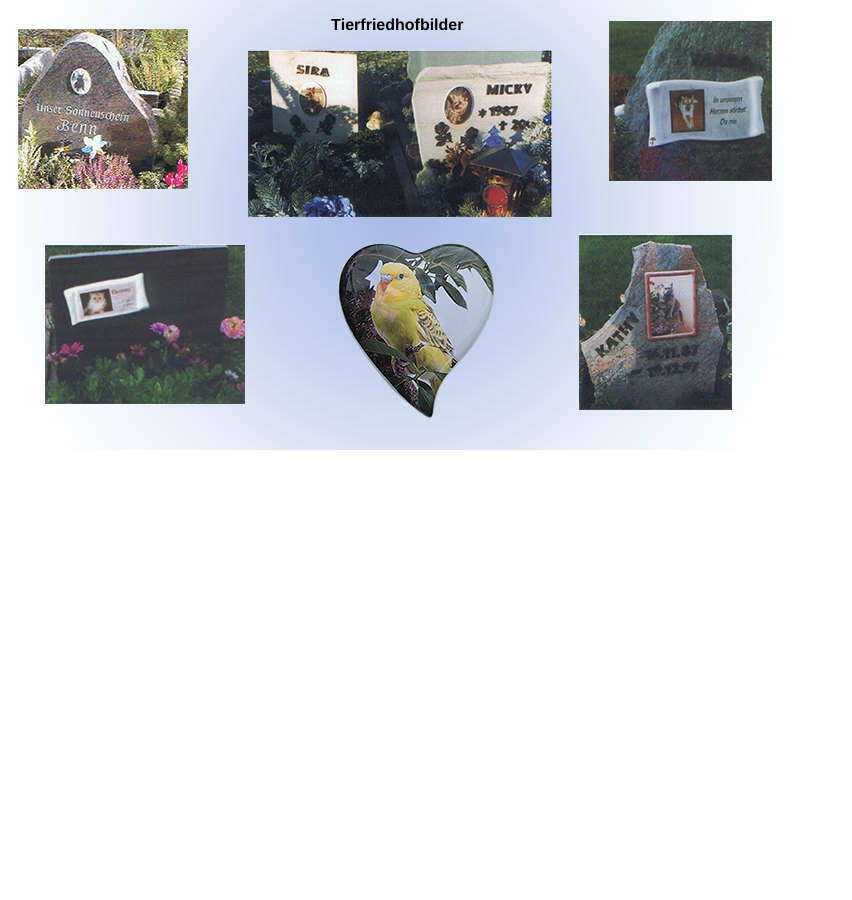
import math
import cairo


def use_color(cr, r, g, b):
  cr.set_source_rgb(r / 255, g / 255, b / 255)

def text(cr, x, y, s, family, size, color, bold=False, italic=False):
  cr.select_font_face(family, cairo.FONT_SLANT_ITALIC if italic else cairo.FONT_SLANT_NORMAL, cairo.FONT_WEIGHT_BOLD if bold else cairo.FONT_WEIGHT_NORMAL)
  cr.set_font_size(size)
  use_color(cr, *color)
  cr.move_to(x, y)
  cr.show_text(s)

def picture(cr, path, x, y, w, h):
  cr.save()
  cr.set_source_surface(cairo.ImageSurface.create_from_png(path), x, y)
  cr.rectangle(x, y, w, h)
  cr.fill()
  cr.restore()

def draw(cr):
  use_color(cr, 255, 255, 255)
  cr.paint()
  picture(cr, "img_01.png", 16, 0, 768, 450)
  picture(cr, "img_02.png", 18, 29, 170, 160)
  picture(cr, "img_03.png", 609, 21, 163, 160)
  picture(cr, "img_04.png", 248, 50, 304, 167)
  picture(cr, "img_05.png", 45, 244, 200, 160)
  picture(cr, "img_06.png", 337, 242, 159, 177)
  picture(cr, "img_07.png", 579, 234, 153, 176)
  text(cr, 331, 30, "Tierfriedhofbilder", "Liberation Sans", 16, (0, 0, 0), bold=True)


surface = cairo.ImageSurface(cairo.FORMAT_RGB24, 852, 900)
cr = cairo.Context(surface)
options = cairo.FontOptions()
options.set_hint_metrics(cairo.HINT_METRICS_OFF)
options.set_hint_style(cairo.HINT_STYLE_NONE)
cr.set_font_options(options)
cr.set_miter_limit(4)
draw(cr)
surface.write_to_png("out.png")
